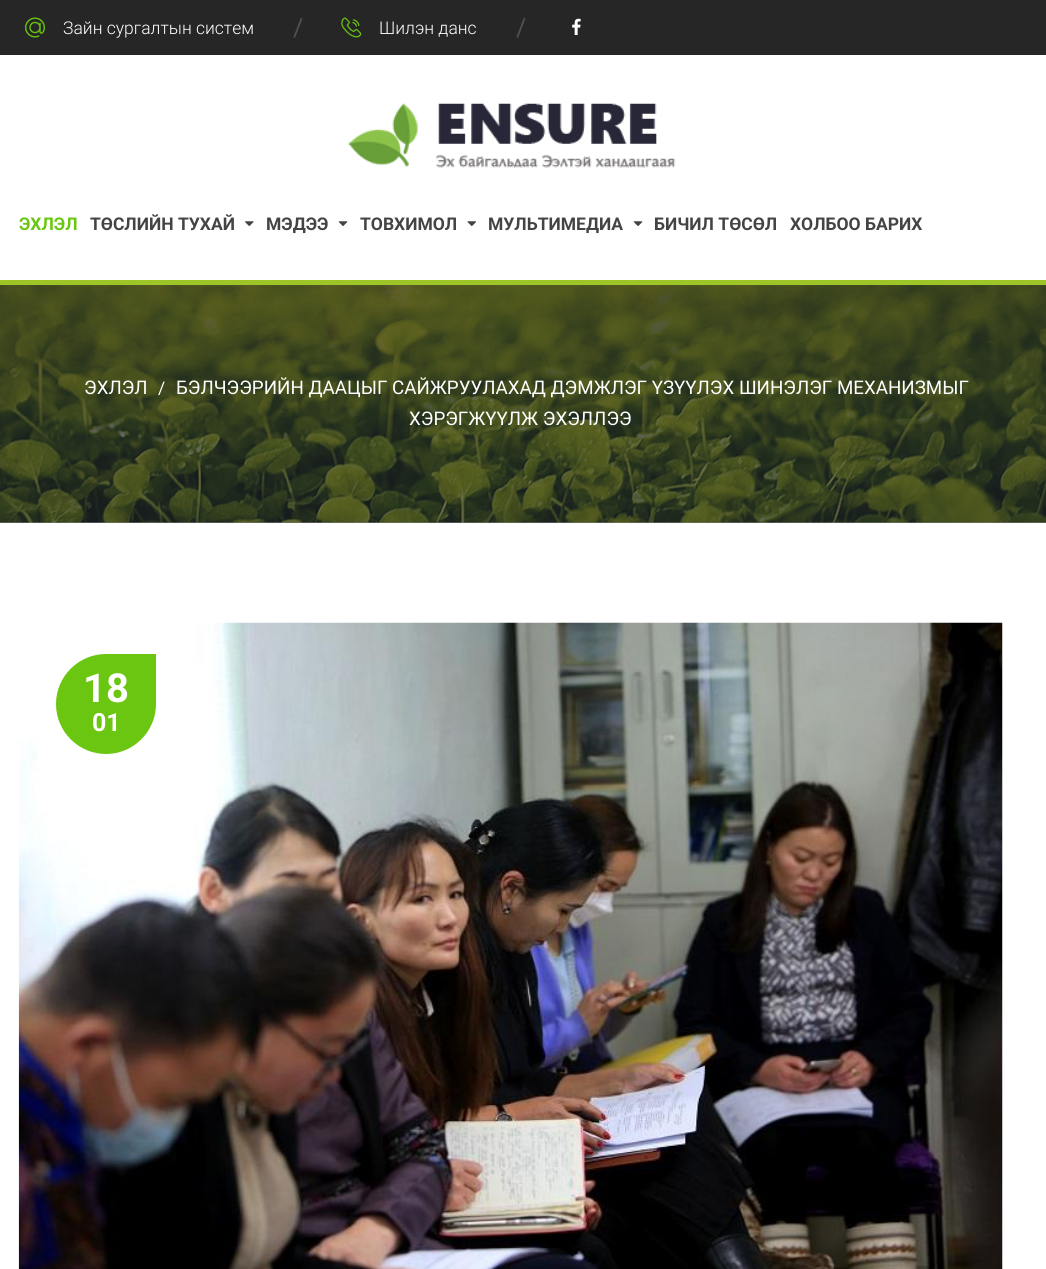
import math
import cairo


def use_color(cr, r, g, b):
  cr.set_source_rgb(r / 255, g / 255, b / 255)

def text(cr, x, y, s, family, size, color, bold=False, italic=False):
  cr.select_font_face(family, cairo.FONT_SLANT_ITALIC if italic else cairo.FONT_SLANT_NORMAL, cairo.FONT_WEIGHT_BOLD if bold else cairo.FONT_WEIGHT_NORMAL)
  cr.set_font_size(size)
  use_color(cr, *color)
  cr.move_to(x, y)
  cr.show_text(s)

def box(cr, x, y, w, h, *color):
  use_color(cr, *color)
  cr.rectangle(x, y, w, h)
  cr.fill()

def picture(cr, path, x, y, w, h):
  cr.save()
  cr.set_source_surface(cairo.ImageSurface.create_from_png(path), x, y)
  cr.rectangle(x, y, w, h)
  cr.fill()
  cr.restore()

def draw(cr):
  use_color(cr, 255, 255, 255)
  cr.paint()
  box(cr, 0, 522, 1046, 1, 125, 128, 130)
  box(cr, 0, 0, 1046, 55, 38, 38, 38)
  box(cr, 0, 280, 1046, 5, 157, 197, 39)
  picture(cr, "img_01.png", 25, 17, 20, 21)
  picture(cr, "img_02.png", 341, 17, 21, 21)
  picture(cr, "img_03.png", 572, 18, 9, 17)
  picture(cr, "img_04.png", 348, 103, 328, 65)
  picture(cr, "img_05.png", 245, 221, 9, 5)
  picture(cr, "img_06.png", 338, 221, 10, 5)
  picture(cr, "img_07.png", 467, 221, 9, 5)
  picture(cr, "img_06.png", 633, 221, 10, 5)
  picture(cr, "img_08.png", 0, 285, 1046, 238)
  picture(cr, "img_09.png", 18, 622, 985, 647)
  use_color(cr, 106, 198, 16)
  cr.new_path()
  cr.move_to(106, 654)
  cr.line_to(156, 654)
  cr.line_to(156, 704)
  cr.curve_to(156, 731.5, 133.5, 754, 106, 754)
  cr.curve_to(78.5, 754, 56, 731.5, 56, 704)
  cr.curve_to(56, 676.5, 78.5, 654, 106, 654)
  cr.close_path()
  cr.fill()
  text(cr, 63, 34, "Зайн сургалтын систем", "Roboto Light", 17.5, (255, 255, 255))
  text(cr, 293, 36, "/", "Roboto", 25, (80, 80, 80))
  text(cr, 379, 34, "Шилэн данс", "Roboto Light", 17.5, (255, 255, 255))
  text(cr, 516, 36, "/", "Roboto", 25, (80, 80, 80))
  text(cr, 19, 230, "ЭХЛЭЛ", "Roboto", 17.5, (106, 198, 16), bold=True)
  text(cr, 90, 230, "ТӨСЛИЙН ТУХАЙ", "Roboto", 17.5, (68, 68, 68), bold=True)
  text(cr, 266, 230, "МЭДЭЭ", "Roboto", 17.5, (68, 68, 68), bold=True)
  text(cr, 360, 230, "ТОВХИМОЛ", "Roboto", 17.5, (68, 68, 68), bold=True)
  text(cr, 488, 230, "МУЛЬТИМЕДИА", "Roboto", 17.5, (68, 68, 68), bold=True)
  text(cr, 654, 230, "БИЧИЛ ТӨСӨЛ", "Roboto", 17.5, (68, 68, 68), bold=True)
  text(cr, 790, 230, "ХОЛБОО БАРИХ", "Roboto", 17.5, (68, 68, 68), bold=True)
  text(cr, 84, 394, "ЭХЛЭЛ", "Roboto", 18.75, (255, 255, 255))
  text(cr, 158, 394, "/", "Roboto", 17.5, (255, 255, 255))
  text(cr, 176, 394, "БЭЛЧЭЭРИЙН ДААЦЫГ САЙЖРУУЛАХАД ДЭМЖЛЭГ ҮЗҮҮЛЭХ ШИНЭЛЭГ МЕХАНИЗМЫГ", "Roboto", 18.75, (255, 255, 255))
  text(cr, 409, 425, "ХЭРЭГЖҮҮЛЖ ЭХЭЛЛЭЭ", "Roboto", 18.75, (255, 255, 255))
  text(cr, 83, 702, "18", "Roboto", 40, (255, 255, 255), bold=True)
  text(cr, 92, 731, "01", "Roboto", 25, (255, 255, 255), bold=True)


surface = cairo.ImageSurface(cairo.FORMAT_RGB24, 1046, 1269)
cr = cairo.Context(surface)
options = cairo.FontOptions()
options.set_hint_metrics(cairo.HINT_METRICS_OFF)
options.set_hint_style(cairo.HINT_STYLE_NONE)
cr.set_font_options(options)
cr.set_miter_limit(4)
draw(cr)
surface.write_to_png("out.png")
